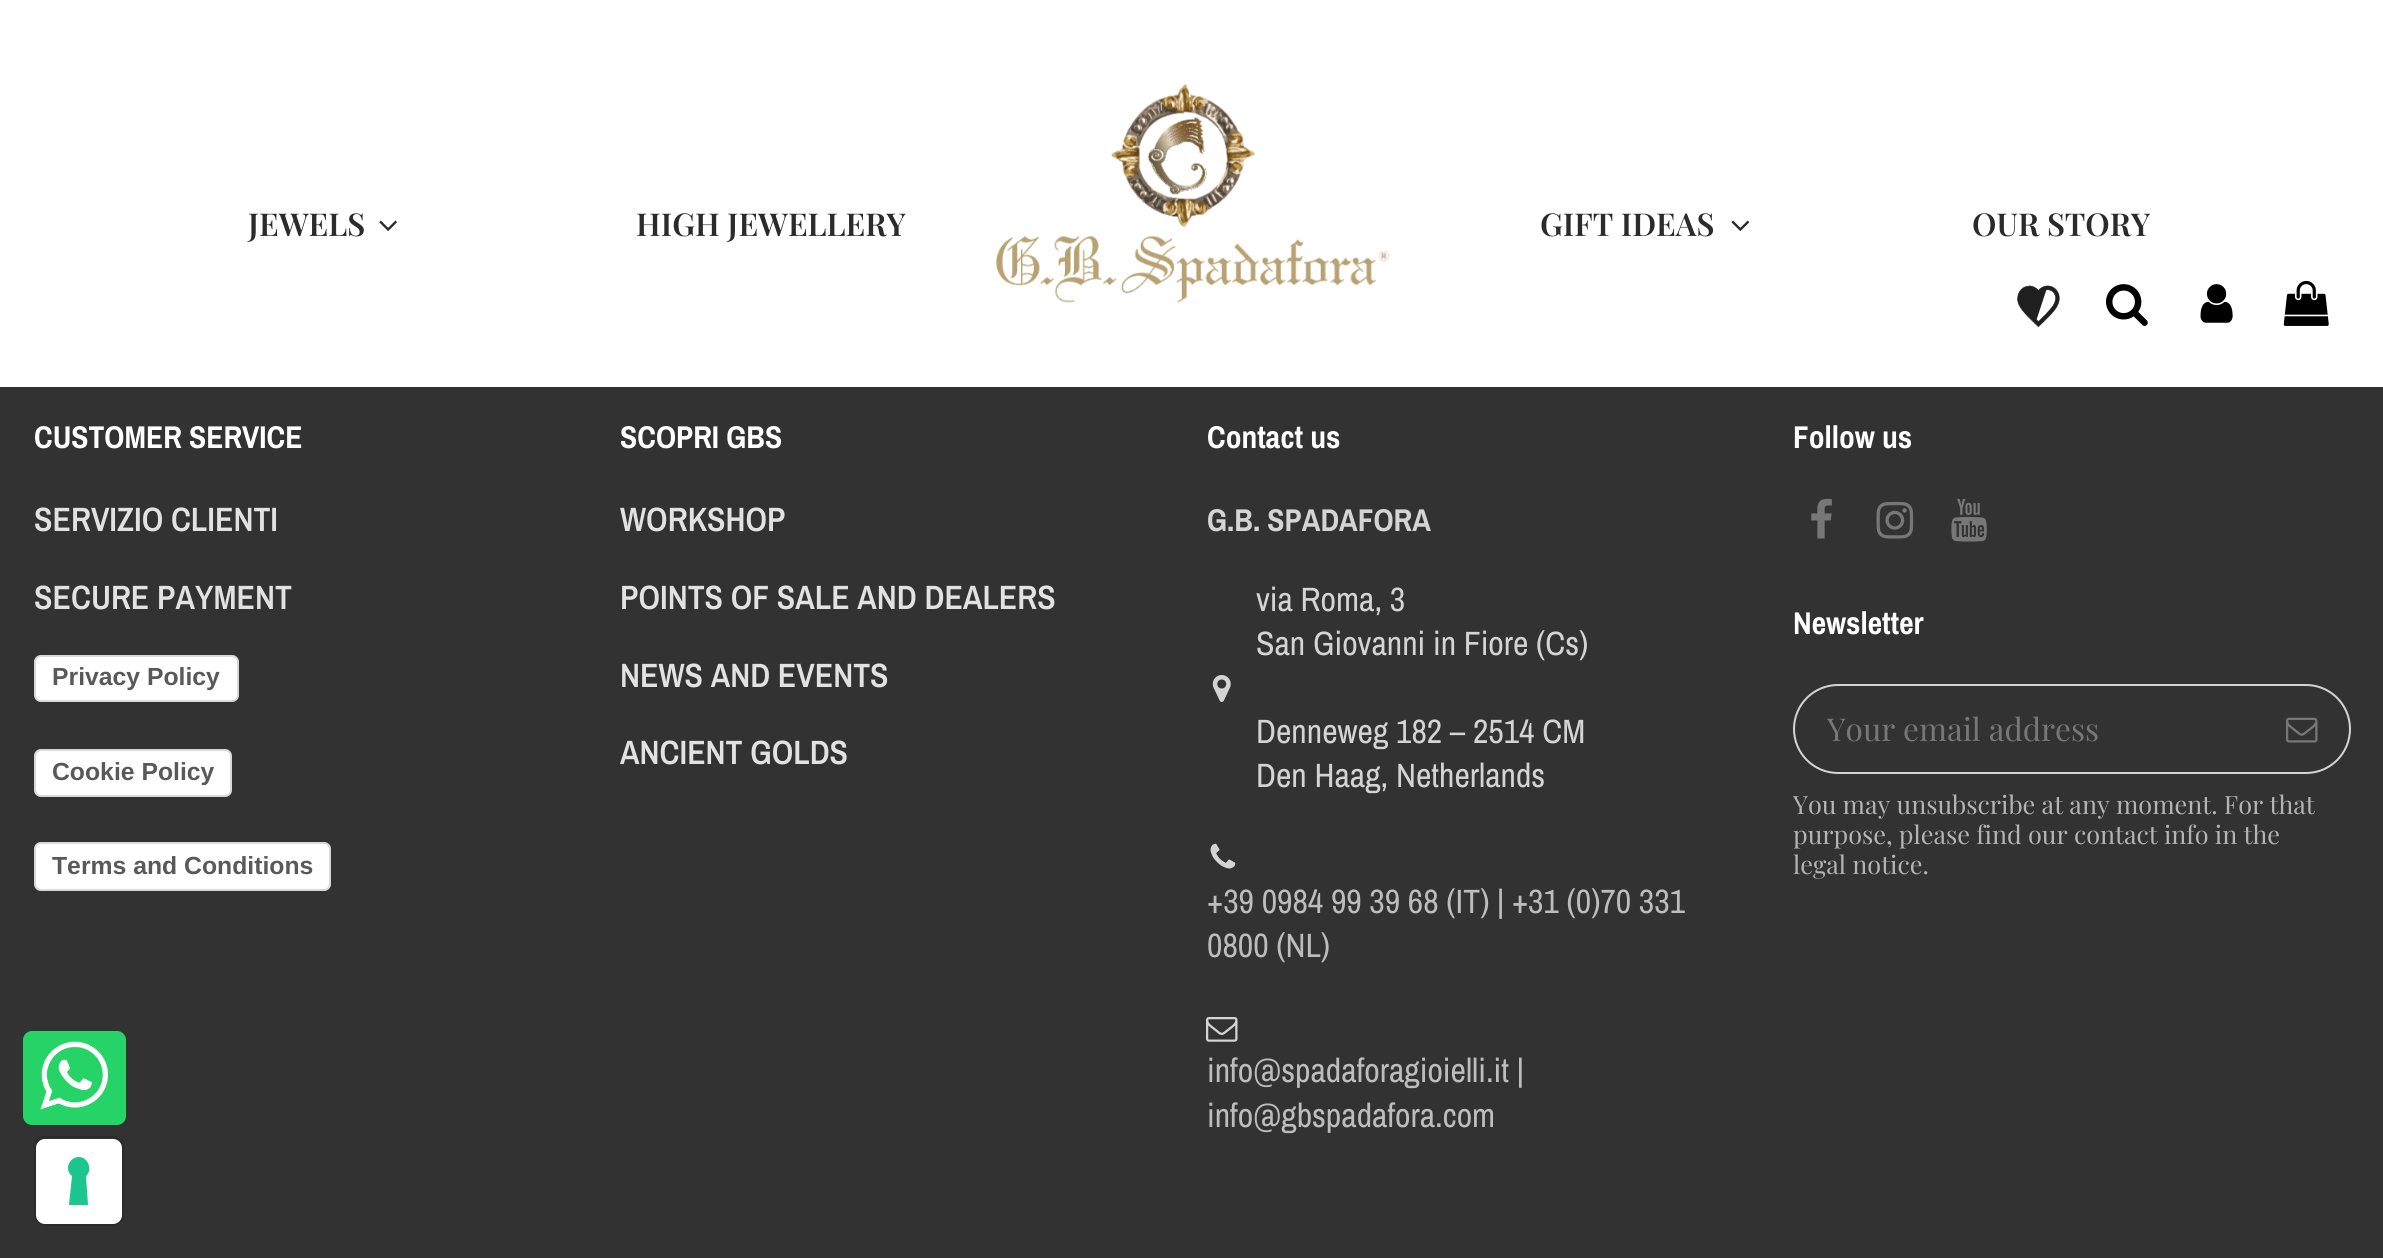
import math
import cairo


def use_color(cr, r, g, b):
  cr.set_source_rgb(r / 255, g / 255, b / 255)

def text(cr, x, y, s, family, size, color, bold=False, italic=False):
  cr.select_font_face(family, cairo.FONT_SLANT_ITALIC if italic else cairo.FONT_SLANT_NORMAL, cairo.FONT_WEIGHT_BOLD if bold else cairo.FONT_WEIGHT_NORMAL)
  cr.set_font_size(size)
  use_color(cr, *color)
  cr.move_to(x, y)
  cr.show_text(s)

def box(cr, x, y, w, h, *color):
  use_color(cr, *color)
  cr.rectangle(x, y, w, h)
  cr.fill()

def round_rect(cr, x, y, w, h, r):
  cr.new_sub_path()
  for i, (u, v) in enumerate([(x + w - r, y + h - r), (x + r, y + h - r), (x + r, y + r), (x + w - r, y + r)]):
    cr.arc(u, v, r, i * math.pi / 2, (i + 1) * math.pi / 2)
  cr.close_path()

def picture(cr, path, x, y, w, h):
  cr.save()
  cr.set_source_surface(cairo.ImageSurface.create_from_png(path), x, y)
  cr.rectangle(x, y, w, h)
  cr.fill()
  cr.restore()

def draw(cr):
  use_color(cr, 50, 50, 50)
  cr.paint()
  box(cr, 0, 0, 2383, 387, 255, 255, 255)
  picture(cr, "img_01.png", 996, 84, 393, 219)
  picture(cr, "img_02.png", 379, 220, 18, 11)
  picture(cr, "img_03.png", 1731, 220, 19, 11)
  picture(cr, "img_04.png", 2017, 285, 43, 42)
  picture(cr, "img_05.png", 2106, 284, 42, 42)
  picture(cr, "img_06.png", 2200, 284, 33, 39)
  picture(cr, "img_07.png", 2283, 280, 46, 46)
  round_rect(cr, 34, 655, 205, 47, 7)
  cr.fill()
  round_rect(cr, 35, 656, 203, 45, 6)
  cr.set_source_rgba(0, 0, 0, 0.15)
  cr.stroke()
  use_color(cr, 255, 255, 255)
  round_rect(cr, 34, 749, 198, 48, 7)
  cr.fill()
  round_rect(cr, 35, 750, 196, 46, 6)
  cr.set_source_rgba(0, 0, 0, 0.15)
  cr.stroke()
  use_color(cr, 255, 255, 255)
  round_rect(cr, 34, 842, 297, 49, 7)
  cr.fill()
  round_rect(cr, 35, 843, 295, 47, 6)
  cr.set_source_rgba(0, 0, 0, 0.15)
  cr.stroke()
  picture(cr, "img_08.png", 1212, 675, 19, 27)
  picture(cr, "img_09.png", 1210, 843, 26, 26)
  picture(cr, "img_10.png", 1206, 1017, 32, 25)
  picture(cr, "img_11.png", 1811, 498, 21, 41)
  picture(cr, "img_12.png", 1876, 501, 38, 38)
  picture(cr, "img_13.png", 1951, 498, 36, 44)
  round_rect(cr, 1794, 685, 556, 88, 44)
  use_color(cr, 212, 212, 212)
  cr.stroke()
  picture(cr, "img_14.png", 2286, 717, 32, 26)
  use_color(cr, 37, 211, 102)
  round_rect(cr, 23, 1031, 103, 94, 9)
  cr.fill()
  picture(cr, "img_15.png", 40, 1041, 68, 69)
  round_rect(cr, 35, 1137, 88, 88, 10)
  use_color(cr, 43, 43, 43)
  cr.stroke()
  use_color(cr, 255, 255, 255)
  round_rect(cr, 36, 1139, 86, 85, 9)
  cr.fill()
  use_color(cr, 28, 198, 145)
  cr.set_fill_rule(cairo.FILL_RULE_EVEN_ODD)
  cr.new_path()
  cr.move_to(79, 1157)
  cr.curve_to(88, 1157, 93, 1170, 86, 1176)
  cr.line_to(88, 1205)
  cr.line_to(69, 1205)
  cr.line_to(72, 1176)
  cr.curve_to(64, 1170, 69, 1157, 79, 1157)
  cr.close_path()
  cr.fill()
  text(cr, 248, 236, "JEWELS", "Playfair Display SemiBold", 31.5, (43, 43, 43))
  text(cr, 636, 236, "HIGH JEWELLERY", "Playfair Display SemiBold", 31.5, (43, 43, 43))
  text(cr, 1540, 236, "GIFT IDEAS", "Playfair Display SemiBold", 31.5, (43, 43, 43))
  text(cr, 1972, 236, "OUR STORY", "Playfair Display SemiBold", 31.5, (43, 43, 43))
  text(cr, 34, 448, "CUSTOMER SERVICE", "Archivo Narrow", 31.5, (255, 255, 255), bold=True)
  text(cr, 34, 531, "SERVIZIO CLIENTI", "Archivo Narrow SemiBold", 33.75, (226, 226, 226))
  text(cr, 34, 609, "SECURE PAYMENT", "Archivo Narrow SemiBold", 33.75, (226, 226, 226))
  text(cr, 52, 685, "Privacy Policy", "Liberation Sans", 24.75, (89, 89, 89), bold=True)
  text(cr, 52, 780, "Cookie Policy", "Liberation Sans", 24.75, (89, 89, 89), bold=True)
  text(cr, 52, 874, "Terms and Conditions", "Liberation Sans", 24.75, (89, 89, 89), bold=True)
  text(cr, 620, 448, "SCOPRI GBS", "Archivo Narrow", 31.5, (255, 255, 255), bold=True)
  text(cr, 620, 531, "WORKSHOP", "Archivo Narrow SemiBold", 33.75, (226, 226, 226))
  text(cr, 620, 609, "POINTS OF SALE AND DEALERS", "Archivo Narrow SemiBold", 33.75, (226, 226, 226))
  text(cr, 620, 687, "NEWS AND EVENTS", "Archivo Narrow SemiBold", 33.75, (226, 226, 226))
  text(cr, 620, 764, "ANCIENT GOLDS", "Archivo Narrow SemiBold", 33.75, (226, 226, 226))
  text(cr, 1207, 448, "Contact us", "Archivo Narrow", 31.5, (255, 255, 255), bold=True)
  text(cr, 1207, 531, "G.B. SPADAFORA", "Archivo Narrow", 31.5, (212, 212, 212), bold=True)
  text(cr, 1256, 611, "via Roma, 3", "Archivo Narrow", 33.75, (212, 212, 212))
  text(cr, 1256, 655, "San Giovanni in Fiore (Cs)", "Archivo Narrow", 33.75, (212, 212, 212))
  text(cr, 1256, 743, "Denneweg 182 – 2514 CM", "Archivo Narrow", 33.75, (212, 212, 212))
  text(cr, 1256, 787, "Den Haag, Netherlands", "Archivo Narrow", 33.75, (212, 212, 212))
  text(cr, 1207, 913, "+39 0984 99 39 68 (IT) | +31 (0)70 331", "Archivo Narrow", 33.75, (189, 189, 189))
  text(cr, 1207, 957, "0800 (NL)", "Archivo Narrow", 33.75, (189, 189, 189))
  text(cr, 1207, 1082, "info@spadaforagioielli.it |", "Archivo Narrow", 33.75, (189, 189, 189))
  text(cr, 1207, 1127, "info@gbspadafora.com", "Archivo Narrow", 33.75, (189, 189, 189))
  text(cr, 1793, 448, "Follow us", "Archivo Narrow", 31.5, (255, 255, 255), bold=True)
  text(cr, 1793, 634, "Newsletter", "Archivo Narrow", 31.5, (255, 255, 255), bold=True)
  text(cr, 1827, 741, "Your email address", "Playfair Display", 31.5, (119, 119, 119))
  text(cr, 1793, 814, "You may unsubscribe at any moment. For that", "Playfair Display", 25.2, (180, 180, 180))
  text(cr, 1793, 844, "purpose, please find our contact info in the", "Playfair Display", 25.2, (180, 180, 180))
  text(cr, 1793, 874, "legal notice.", "Playfair Display", 25.2, (180, 180, 180))


surface = cairo.ImageSurface(cairo.FORMAT_RGB24, 2383, 1258)
cr = cairo.Context(surface)
options = cairo.FontOptions()
options.set_hint_metrics(cairo.HINT_METRICS_OFF)
options.set_hint_style(cairo.HINT_STYLE_NONE)
cr.set_font_options(options)
cr.set_miter_limit(4)
draw(cr)
surface.write_to_png("out.png")
